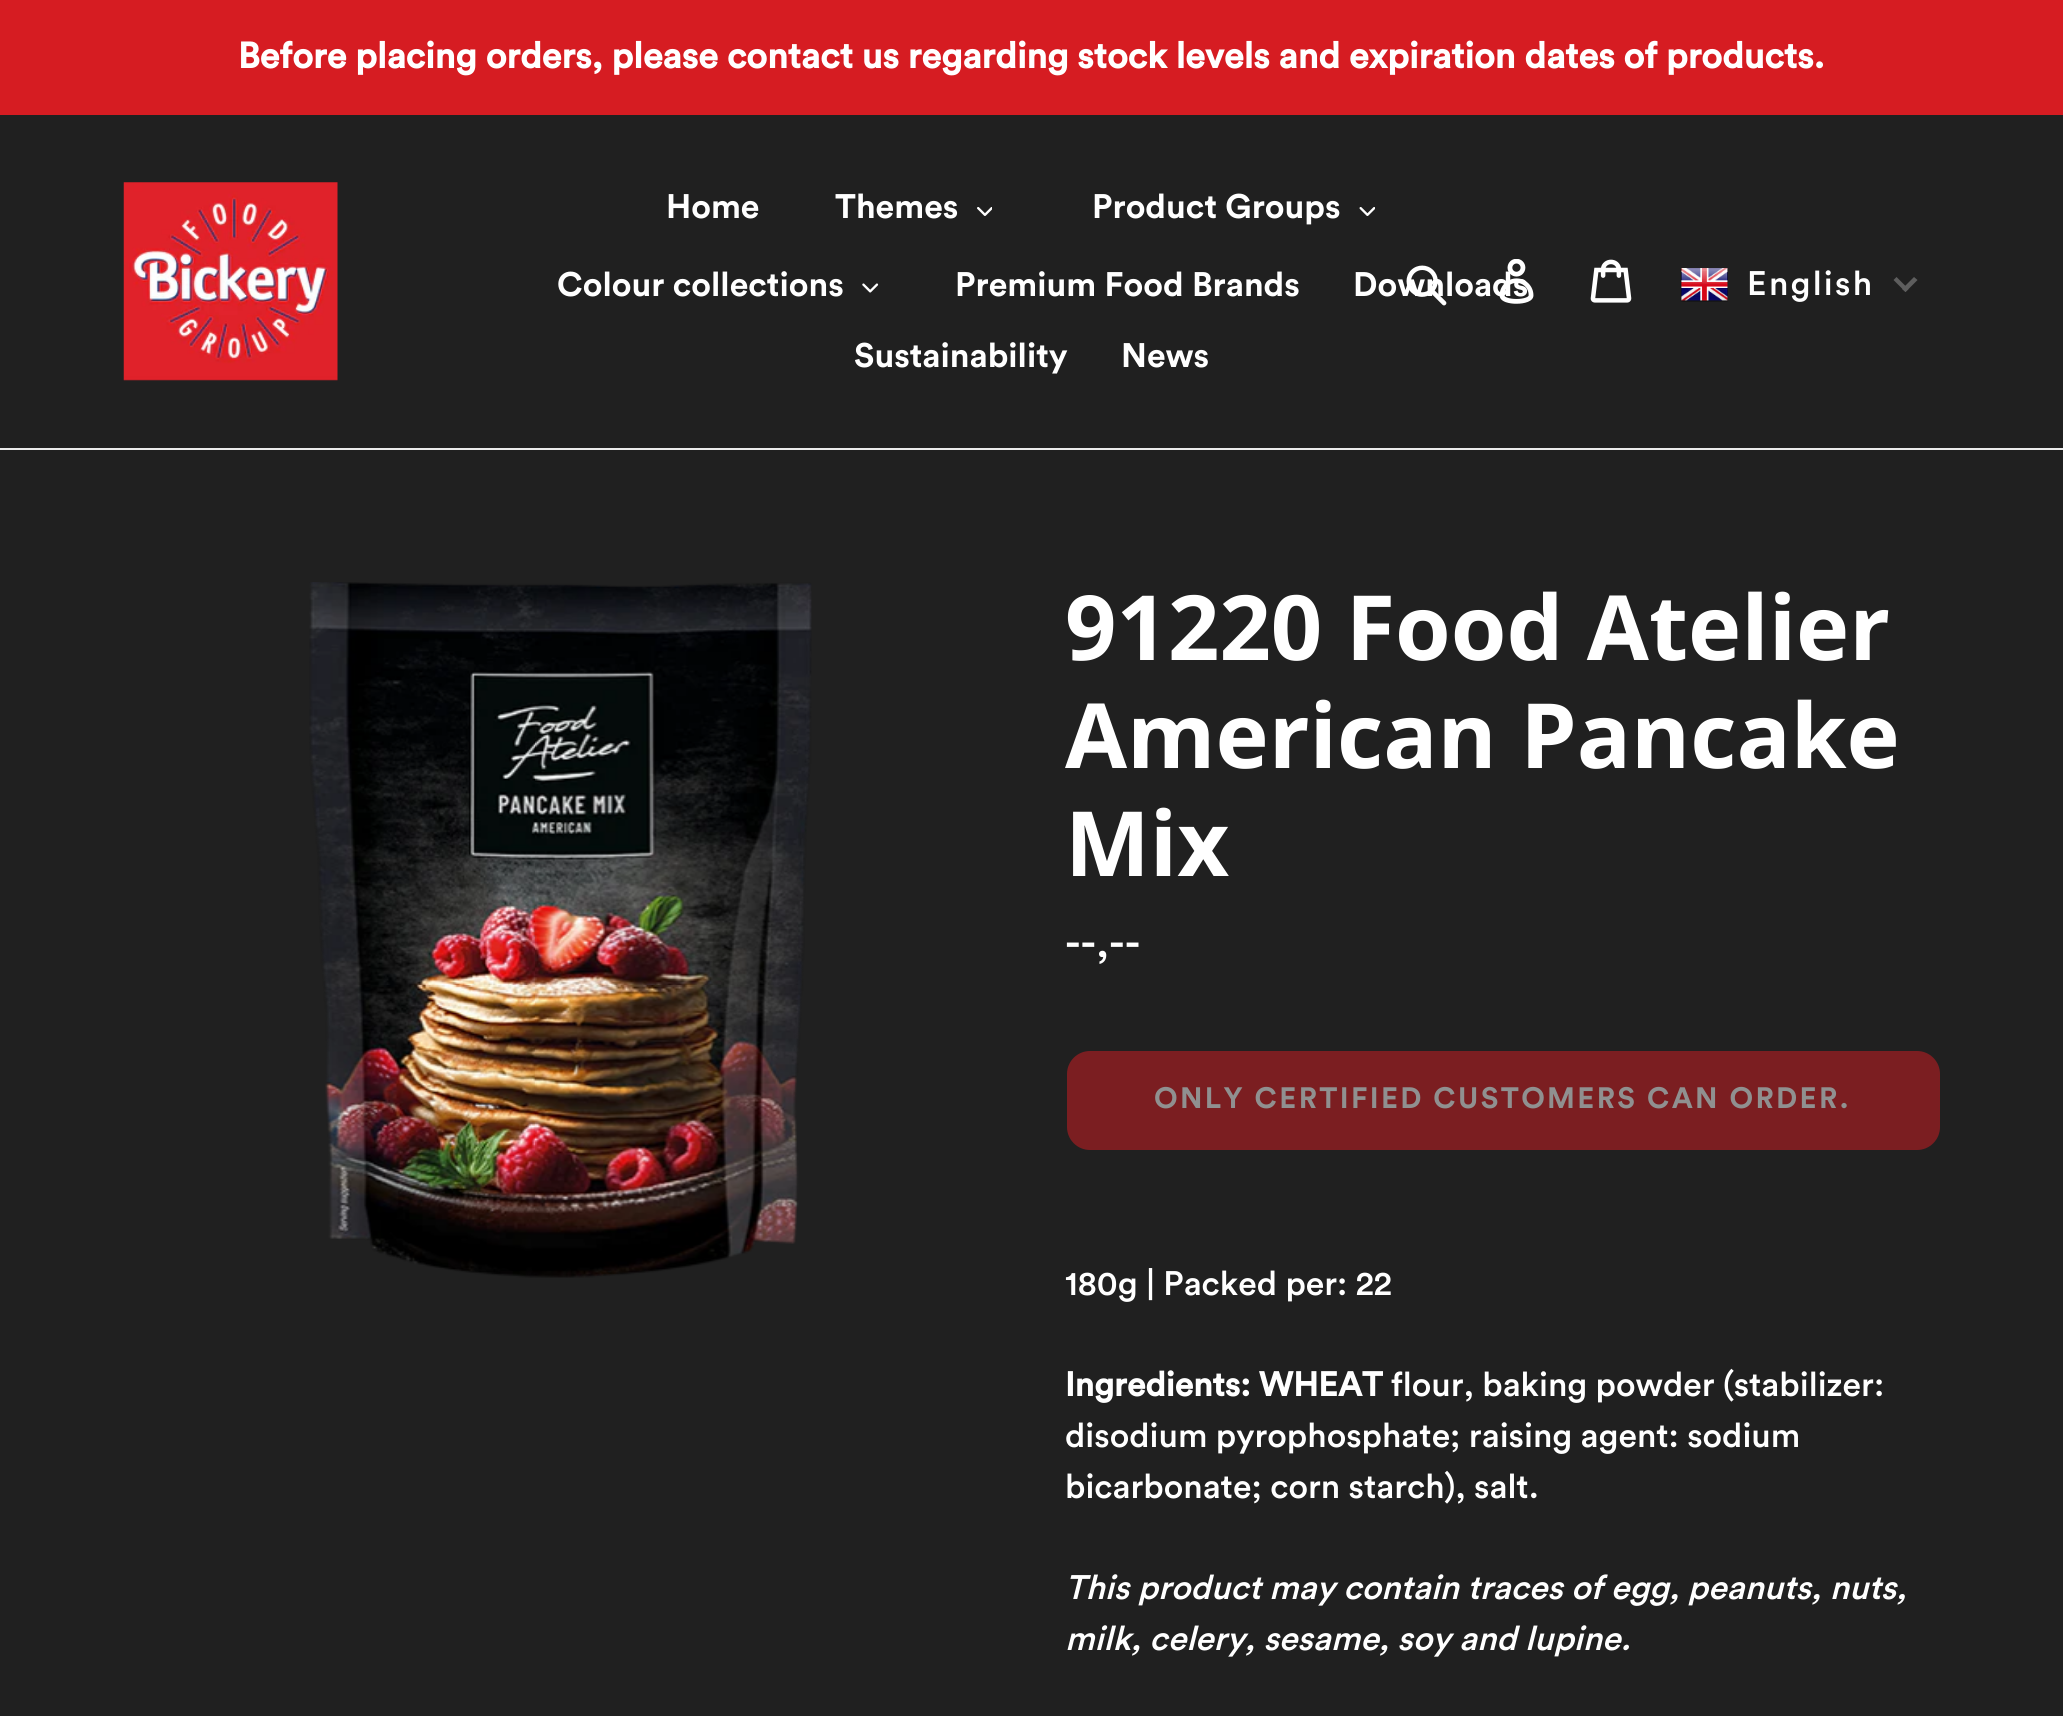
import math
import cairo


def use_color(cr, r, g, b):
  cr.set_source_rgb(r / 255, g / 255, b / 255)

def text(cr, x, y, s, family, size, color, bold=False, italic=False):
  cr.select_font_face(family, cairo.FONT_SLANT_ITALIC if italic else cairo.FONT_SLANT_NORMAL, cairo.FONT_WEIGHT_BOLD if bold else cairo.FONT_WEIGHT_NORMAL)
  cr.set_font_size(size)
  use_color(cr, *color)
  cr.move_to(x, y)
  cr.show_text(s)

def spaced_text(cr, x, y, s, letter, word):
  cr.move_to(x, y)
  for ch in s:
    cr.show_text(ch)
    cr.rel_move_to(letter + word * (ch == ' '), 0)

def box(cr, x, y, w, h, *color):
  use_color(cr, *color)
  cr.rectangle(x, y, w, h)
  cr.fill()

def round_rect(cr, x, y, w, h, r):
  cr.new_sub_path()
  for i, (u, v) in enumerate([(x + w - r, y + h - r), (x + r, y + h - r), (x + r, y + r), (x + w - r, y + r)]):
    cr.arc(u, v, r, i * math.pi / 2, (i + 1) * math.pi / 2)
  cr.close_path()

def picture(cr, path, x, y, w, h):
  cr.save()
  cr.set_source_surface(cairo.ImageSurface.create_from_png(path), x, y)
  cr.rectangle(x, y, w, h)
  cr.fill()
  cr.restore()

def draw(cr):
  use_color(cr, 32, 32, 32)
  cr.paint()
  box(cr, 0, 0, 2063, 115, 214, 28, 34)
  box(cr, 0, 448, 2063, 2, 235, 235, 235)
  picture(cr, "img_01.png", 123, 182, 215, 199)
  picture(cr, "img_02.png", 977, 207, 15, 9)
  picture(cr, "img_03.png", 1359, 207, 16, 9)
  picture(cr, "img_04.png", 862, 283, 17, 10)
  picture(cr, "img_07.png", 1590, 259, 42, 44)
  picture(cr, "img_08.png", 1680, 268, 48, 34)
  use_color(cr, 94, 94, 94)
  cr.new_path()
  cr.move_to(1914, 277)
  cr.line_to(1917.5, 280)
  cr.line_to(1905.5, 292)
  cr.line_to(1902, 289)
  cr.close_path()
  cr.fill()
  cr.new_path()
  cr.move_to(1896.5, 277)
  cr.line_to(1908.5, 289)
  cr.line_to(1905.5, 292)
  cr.line_to(1893.5, 280)
  cr.close_path()
  cr.fill()
  picture(cr, "img_09.png", 309, 582, 503, 696)
  use_color(cr, 123, 30, 33)
  round_rect(cr, 1067, 1051, 873, 99, 23)
  cr.fill()
  text(cr, 238, 68, "Before placing orders, please contact us regarding stock levels and expiration dates of products.", "Circular", 36, (255, 255, 255), bold=True)
  text(cr, 666, 218, "Home", "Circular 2", 33.75, (255, 255, 255), bold=True)
  text(cr, 835, 218, "Themes", "Circular 2", 33.75, (255, 255, 255), bold=True)
  text(cr, 1092, 218, "Product Groups", "Circular 2", 33.75, (255, 255, 255), bold=True)
  text(cr, 557, 296, "Colour collections", "Circular 2", 33.75, (255, 255, 255), bold=True)
  text(cr, 955, 296, "Premium Food Brands", "Circular 2", 33.75, (255, 255, 255), bold=True)
  text(cr, 1353, 296, "Downloads", "Circular 2", 33.75, (255, 255, 255), bold=True)
  text(cr, 854, 367, "Sustainability", "Circular 2", 33.75, (255, 255, 255), bold=True)
  text(cr, 1121, 367, "News", "Circular 2", 33.75, (255, 255, 255), bold=True)
  picture(cr, "img_05.png", 1406, 265, 41, 41)
  picture(cr, "img_06.png", 1499, 259, 35, 45)
  cr.select_font_face("Circular Medium")
  spaced_text(cr, 1747, 295, "English", 2.25, 0)
  text(cr, 1065, 660, "91220 Food Atelier", "Open Sans", 90, (255, 255, 255), bold=True)
  text(cr, 1065, 768, "American Pancake", "Open Sans", 90, (255, 255, 255), bold=True)
  text(cr, 1065, 876, "Mix", "Open Sans", 90, (255, 255, 255), bold=True)
  text(cr, 1065, 957, "--,--", "Circular Medium", 42, (255, 255, 255))
  cr.select_font_face("Circular 2", cairo.FONT_SLANT_NORMAL, cairo.FONT_WEIGHT_BOLD)
  cr.set_font_size(29.25)
  use_color(cr, 144, 144, 144)
  spaced_text(cr, 1154, 1108, "ONLY CERTIFIED CUSTOMERS CAN ORDER.", 2.35, 0)
  text(cr, 1065, 1295, "180g | Packed per: 22", "Circular Medium", 33.75, (255, 255, 255))
  text(cr, 1065, 1396, "Ingredients: WHEAT", "Circular", 33.75, (255, 255, 255), bold=True)
  text(cr, 1391, 1396, "flour, baking powder (stabilizer:", "Circular Medium", 33.75, (255, 255, 255))
  text(cr, 1065, 1447, "disodium pyrophosphate; raising agent: sodium", "Circular Medium", 33.75, (255, 255, 255))
  text(cr, 1065, 1498, "bicarbonate; corn starch), salt.", "Circular Medium", 33.75, (255, 255, 255))
  text(cr, 1065, 1599, "This product may contain traces of egg, peanuts, nuts,", "Circular Medium", 33.75, (255, 255, 255), italic=True)
  text(cr, 1065, 1650, "milk, celery, sesame, soy and lupine.", "Circular Medium", 33.75, (255, 255, 255), italic=True)


surface = cairo.ImageSurface(cairo.FORMAT_RGB24, 2063, 1716)
cr = cairo.Context(surface)
options = cairo.FontOptions()
options.set_hint_metrics(cairo.HINT_METRICS_OFF)
options.set_hint_style(cairo.HINT_STYLE_NONE)
cr.set_font_options(options)
cr.set_miter_limit(4)
draw(cr)
surface.write_to_png("out.png")
